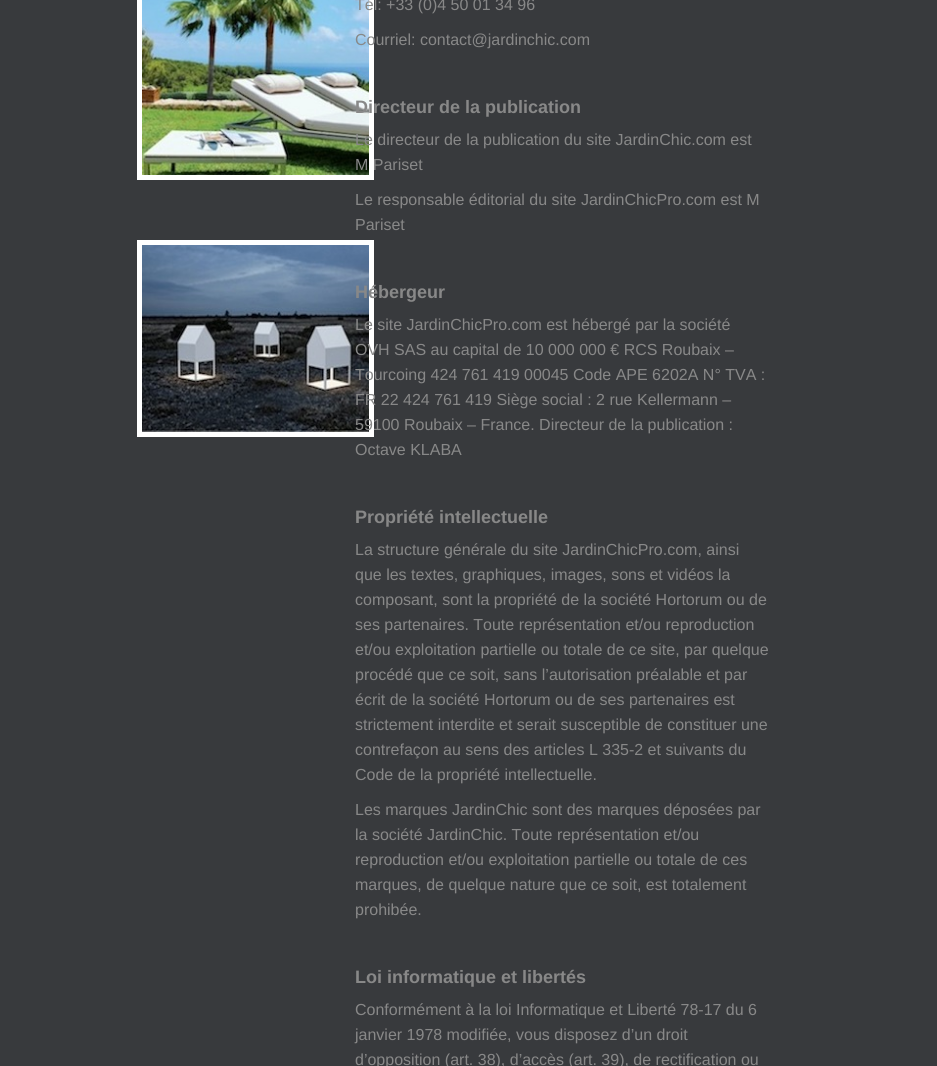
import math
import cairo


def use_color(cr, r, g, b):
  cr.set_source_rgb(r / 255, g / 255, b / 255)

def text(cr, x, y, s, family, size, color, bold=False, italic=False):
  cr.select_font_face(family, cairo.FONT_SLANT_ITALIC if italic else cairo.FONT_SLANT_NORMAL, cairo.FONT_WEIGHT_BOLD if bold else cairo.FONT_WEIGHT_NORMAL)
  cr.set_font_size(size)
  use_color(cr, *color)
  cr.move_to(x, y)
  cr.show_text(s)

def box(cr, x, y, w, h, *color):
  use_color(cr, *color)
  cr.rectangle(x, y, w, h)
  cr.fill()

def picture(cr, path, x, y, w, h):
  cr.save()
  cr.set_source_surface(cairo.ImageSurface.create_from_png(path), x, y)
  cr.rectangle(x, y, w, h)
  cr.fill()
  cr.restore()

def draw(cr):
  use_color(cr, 56, 58, 61)
  cr.paint()
  box(cr, 137, 0, 237, 180, 255, 255, 255)
  picture(cr, "img_01.png", 142, 0, 227, 175)
  box(cr, 137, 240, 237, 197, 255, 255, 255)
  picture(cr, "img_02.png", 142, 245, 227, 187)
  text(cr, 355, 10, "Tél: +33 (0)4 50 01 34 96", "Liberation Sans", 16, (136, 136, 136))
  text(cr, 355, 45, "Courriel: contact@jardinchic.com", "Liberation Sans", 16, (136, 136, 136))
  text(cr, 355, 113, "Directeur de la publication", "Liberation Sans", 18, (136, 136, 136), bold=True)
  text(cr, 355, 145, "Le directeur de la publication du site JardinChic.com est", "Liberation Sans", 16, (136, 136, 136))
  text(cr, 355, 170, "M Pariset", "Liberation Sans", 16, (136, 136, 136))
  text(cr, 355, 205, "Le responsable éditorial du site JardinChicPro.com est M", "Liberation Sans", 16, (136, 136, 136))
  text(cr, 355, 230, "Pariset", "Liberation Sans", 16, (136, 136, 136))
  text(cr, 355, 298, "Hébergeur", "Liberation Sans", 18, (136, 136, 136), bold=True)
  text(cr, 355, 330, "Le site JardinChicPro.com est hébergé par la société", "Liberation Sans", 16, (136, 136, 136))
  text(cr, 355, 355, "OVH SAS au capital de 10 000 000 € RCS Roubaix –", "Liberation Sans", 16, (136, 136, 136))
  text(cr, 355, 380, "Tourcoing 424 761 419 00045 Code APE 6202A N° TVA :", "Liberation Sans", 16, (136, 136, 136))
  text(cr, 355, 405, "FR 22 424 761 419 Siège social : 2 rue Kellermann –", "Liberation Sans", 16, (136, 136, 136))
  text(cr, 355, 430, "59100 Roubaix – France. Directeur de la publication :", "Liberation Sans", 16, (136, 136, 136))
  text(cr, 355, 455, "Octave KLABA", "Liberation Sans", 16, (136, 136, 136))
  text(cr, 355, 523, "Propriété intellectuelle", "Liberation Sans", 18, (136, 136, 136), bold=True)
  text(cr, 355, 555, "La structure générale du site JardinChicPro.com, ainsi", "Liberation Sans", 16, (136, 136, 136))
  text(cr, 355, 580, "que les textes, graphiques, images, sons et vidéos la", "Liberation Sans", 16, (136, 136, 136))
  text(cr, 355, 605, "composant, sont la propriété de la société Hortorum ou de", "Liberation Sans", 16, (136, 136, 136))
  text(cr, 355, 630, "ses partenaires. Toute représentation et/ou reproduction", "Liberation Sans", 16, (136, 136, 136))
  text(cr, 355, 655, "et/ou exploitation partielle ou totale de ce site, par quelque", "Liberation Sans", 16, (136, 136, 136))
  text(cr, 355, 680, "procédé que ce soit, sans l’autorisation préalable et par", "Liberation Sans", 16, (136, 136, 136))
  text(cr, 355, 705, "écrit de la société Hortorum ou de ses partenaires est", "Liberation Sans", 16, (136, 136, 136))
  text(cr, 355, 730, "strictement interdite et serait susceptible de constituer une", "Liberation Sans", 16, (136, 136, 136))
  text(cr, 355, 755, "contrefaçon au sens des articles L 335-2 et suivants du", "Liberation Sans", 16, (136, 136, 136))
  text(cr, 355, 780, "Code de la propriété intellectuelle.", "Liberation Sans", 16, (136, 136, 136))
  text(cr, 355, 815, "Les marques JardinChic sont des marques déposées par", "Liberation Sans", 16, (136, 136, 136))
  text(cr, 355, 840, "la société JardinChic. Toute représentation et/ou", "Liberation Sans", 16, (136, 136, 136))
  text(cr, 355, 865, "reproduction et/ou exploitation partielle ou totale de ces", "Liberation Sans", 16, (136, 136, 136))
  text(cr, 355, 890, "marques, de quelque nature que ce soit, est totalement", "Liberation Sans", 16, (136, 136, 136))
  text(cr, 355, 915, "prohibée.", "Liberation Sans", 16, (136, 136, 136))
  text(cr, 355, 983, "Loi informatique et libertés", "Liberation Sans", 18, (136, 136, 136), bold=True)
  text(cr, 355, 1015, "Conformément à la loi Informatique et Liberté 78-17 du 6", "Liberation Sans", 16, (136, 136, 136))
  text(cr, 355, 1040, "janvier 1978 modifiée, vous disposez d’un droit", "Liberation Sans", 16, (136, 136, 136))
  text(cr, 355, 1065, "d’opposition (art. 38), d’accès (art. 39), de rectification ou", "Liberation Sans", 16, (136, 136, 136))


surface = cairo.ImageSurface(cairo.FORMAT_RGB24, 937, 1066)
cr = cairo.Context(surface)
options = cairo.FontOptions()
options.set_hint_metrics(cairo.HINT_METRICS_OFF)
options.set_hint_style(cairo.HINT_STYLE_NONE)
cr.set_font_options(options)
cr.set_miter_limit(4)
draw(cr)
surface.write_to_png("out.png")
